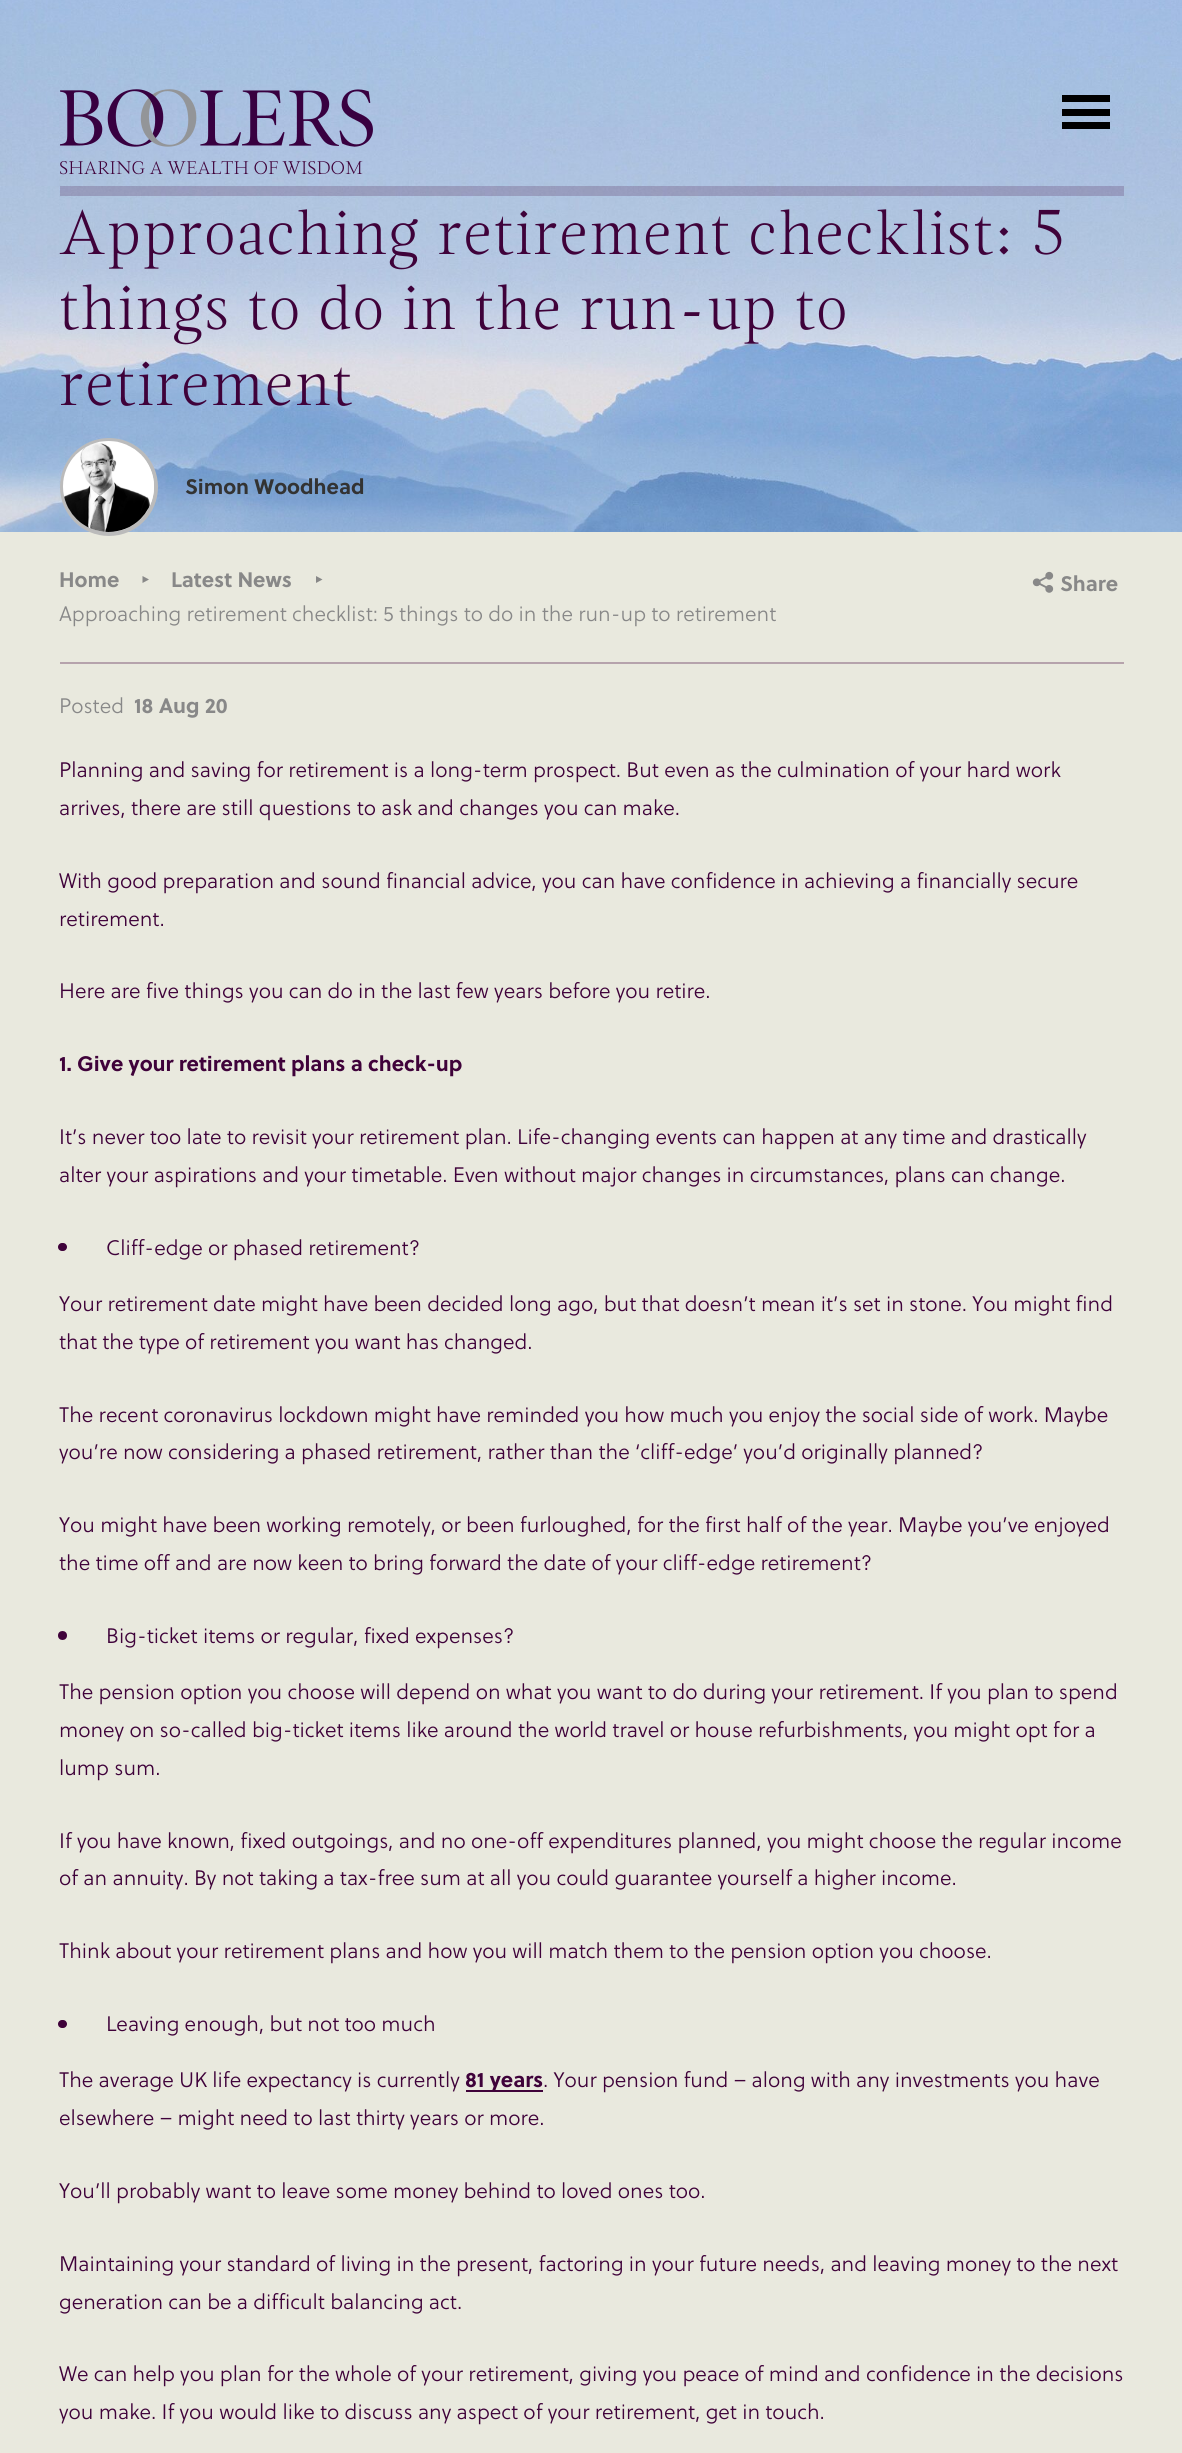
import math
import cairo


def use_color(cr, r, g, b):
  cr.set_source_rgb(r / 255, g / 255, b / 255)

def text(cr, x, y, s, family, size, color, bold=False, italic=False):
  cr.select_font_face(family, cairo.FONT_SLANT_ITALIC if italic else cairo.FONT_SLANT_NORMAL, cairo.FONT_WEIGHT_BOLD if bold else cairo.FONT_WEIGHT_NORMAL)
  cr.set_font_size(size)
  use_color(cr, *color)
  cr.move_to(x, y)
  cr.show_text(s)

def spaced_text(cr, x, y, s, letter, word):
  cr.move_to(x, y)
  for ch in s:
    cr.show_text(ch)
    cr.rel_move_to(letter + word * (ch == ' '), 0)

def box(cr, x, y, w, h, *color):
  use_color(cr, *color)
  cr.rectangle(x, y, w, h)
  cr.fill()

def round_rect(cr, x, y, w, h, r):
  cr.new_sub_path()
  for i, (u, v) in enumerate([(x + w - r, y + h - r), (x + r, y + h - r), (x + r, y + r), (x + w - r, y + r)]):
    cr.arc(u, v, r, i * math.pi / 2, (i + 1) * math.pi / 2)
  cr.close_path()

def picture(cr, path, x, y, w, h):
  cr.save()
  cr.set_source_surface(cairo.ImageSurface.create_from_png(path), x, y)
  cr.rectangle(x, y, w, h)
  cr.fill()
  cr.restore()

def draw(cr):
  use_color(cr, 255, 255, 255)
  cr.paint()
  picture(cr, "img_01.png", 0, 0, 1182, 532)
  cr.set_source_rgba(0.247, 0.008, 0.227, 0.2)
  cr.rectangle(60, 186, 1064, 10)
  cr.fill()
  use_color(cr, 0, 0, 0)
  cr.new_path()
  cr.move_to(1062, 102)
  cr.line_to(1062, 95)
  cr.line_to(1110, 95)
  cr.line_to(1110, 102)
  cr.close_path()
  cr.move_to(1062, 116)
  cr.line_to(1062, 109)
  cr.line_to(1110, 109)
  cr.line_to(1110, 116)
  cr.close_path()
  cr.move_to(1062, 129)
  cr.line_to(1062, 122)
  cr.line_to(1110, 122)
  cr.line_to(1110, 129)
  cr.close_path()
  cr.fill()
  picture(cr, "img_02.png", 60, 89, 313, 58)
  box(cr, 0, 532, 1182, 1921, 233, 233, 222)
  use_color(cr, 255, 255, 255)
  cr.arc(109, 487, 47, 0, 2 * math.pi)
  cr.fill_preserve()
  use_color(cr, 187, 187, 187)
  cr.set_line_width(4)
  cr.stroke()
  picture(cr, "img_03.png", 63, 441, 91, 91)
  box(cr, 60, 662, 1064, 2, 182, 163, 172)
  use_color(cr, 136, 136, 136)
  cr.new_path()
  cr.move_to(142.5, 579.5)
  cr.line_to(142.5, 576)
  cr.line_to(149, 579.5)
  cr.line_to(142.5, 583)
  cr.close_path()
  cr.fill()
  cr.new_path()
  cr.move_to(316, 579.5)
  cr.line_to(316, 576)
  cr.line_to(322.5, 579.5)
  cr.line_to(316, 583)
  cr.close_path()
  cr.fill()
  picture(cr, "img_04.png", 1032, 571, 22, 22)
  use_color(cr, 63, 2, 58)
  round_rect(cr, 58, 1243, 9, 8, 4)
  cr.fill()
  cr.arc(62.5, 1635.5, 4.5, 0, 2 * math.pi)
  cr.fill()
  round_rect(cr, 58, 2020, 9, 8, 4)
  cr.fill()
  box(cr, 466, 2090, 77, 2, 63, 2, 58)
  text(cr, 59, 174, "SHARING A WEALTH OF WISDOM", "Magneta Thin", 18.25, (63, 2, 58))
  cr.set_font_size(63)
  spaced_text(cr, 59, 254, "Approaching retirement checklist: 5", 1.75, 0)
  spaced_text(cr, 59, 329, "things to do in the run-up to", 1.75, 0)
  spaced_text(cr, 59, 405, "retirement", 1.75, 0)
  text(cr, 185, 494, "Simon Woodhead", "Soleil", 21, (51, 51, 51), bold=True)
  text(cr, 59, 587, "Home", "Soleil", 21, (136, 136, 136), bold=True)
  text(cr, 171, 587, "Latest News", "Soleil", 21, (136, 136, 136), bold=True)
  text(cr, 59, 621, "Approaching retirement checklist: 5 things to do in the run-up to retirement", "Soleil Light", 21, (136, 136, 136))
  text(cr, 1060, 591, "Share", "Soleil", 21, (136, 136, 136), bold=True)
  text(cr, 59, 713, "Posted", "Soleil Light", 21, (136, 136, 136))
  text(cr, 134, 713, "18 Aug 20", "Soleil", 21, (136, 136, 136), bold=True)
  text(cr, 59, 777, "Planning and saving for retirement is a long-term prospect. But even as the culmination of your hard work", "Soleil Light", 21, (63, 2, 58))
  text(cr, 59, 815, "arrives, there are still questions to ask and changes you can make.", "Soleil Light", 21, (63, 2, 58))
  text(cr, 59, 888, "With good preparation and sound financial advice, you can have confidence in achieving a financially secure", "Soleil Light", 21, (63, 2, 58))
  text(cr, 59, 926, "retirement.", "Soleil Light", 21, (63, 2, 58))
  text(cr, 59, 998, "Here are five things you can do in the last few years before you retire.", "Soleil Light", 21, (63, 2, 58))
  text(cr, 59, 1071, "1. Give your retirement plans a check-up", "Soleil", 21, (63, 2, 58), bold=True)
  text(cr, 59, 1144, "It’s never too late to revisit your retirement plan. Life-changing events can happen at any time and drastically", "Soleil Light", 21, (63, 2, 58))
  text(cr, 59, 1182, "alter your aspirations and your timetable. Even without major changes in circumstances, plans can change.", "Soleil Light", 21, (63, 2, 58))
  text(cr, 106, 1255, "Cliff-edge or phased retirement?", "Soleil Light", 21, (63, 2, 58))
  text(cr, 59, 1311, "Your retirement date might have been decided long ago, but that doesn’t mean it’s set in stone. You might find", "Soleil Light", 21, (63, 2, 58))
  text(cr, 59, 1349, "that the type of retirement you want has changed.", "Soleil Light", 21, (63, 2, 58))
  text(cr, 59, 1422, "The recent coronavirus lockdown might have reminded you how much you enjoy the social side of work. Maybe", "Soleil Light", 21, (63, 2, 58))
  text(cr, 59, 1459, "you’re now considering a phased retirement, rather than the ‘cliff-edge’ you’d originally planned?", "Soleil Light", 21, (63, 2, 58))
  text(cr, 59, 1532, "You might have been working remotely, or been furloughed, for the first half of the year. Maybe you’ve enjoyed", "Soleil Light", 21, (63, 2, 58))
  text(cr, 59, 1570, "the time off and are now keen to bring forward the date of your cliff-edge retirement?", "Soleil Light", 21, (63, 2, 58))
  text(cr, 106, 1643, "Big-ticket items or regular, fixed expenses?", "Soleil Light", 21, (63, 2, 58))
  text(cr, 59, 1699, "The pension option you choose will depend on what you want to do during your retirement. If you plan to spend", "Soleil Light", 21, (63, 2, 58))
  text(cr, 59, 1737, "money on so-called big-ticket items like around the world travel or house refurbishments, you might opt for a", "Soleil Light", 21, (63, 2, 58))
  text(cr, 59, 1775, "lump sum.", "Soleil Light", 21, (63, 2, 58))
  text(cr, 59, 1848, "If you have known, fixed outgoings, and no one-off expenditures planned, you might choose the regular income", "Soleil Light", 21, (63, 2, 58))
  text(cr, 59, 1885, "of an annuity. By not taking a tax-free sum at all you could guarantee yourself a higher income.", "Soleil Light", 21, (63, 2, 58))
  text(cr, 59, 1958, "Think about your retirement plans and how you will match them to the pension option you choose.", "Soleil Light", 21, (63, 2, 58))
  text(cr, 106, 2031, "Leaving enough, but not too much", "Soleil Light", 21, (63, 2, 58))
  text(cr, 59, 2087, "The average UK life expectancy is currently", "Soleil Light", 21, (63, 2, 58))
  text(cr, 465, 2087, "81 years", "Soleil", 21, (63, 2, 58), bold=True)
  text(cr, 543, 2087, ". Your pension fund – along with any investments you have", "Soleil Light", 21, (63, 2, 58))
  text(cr, 59, 2125, "elsewhere – might need to last thirty years or more.", "Soleil Light", 21, (63, 2, 58))
  text(cr, 59, 2198, "You’ll probably want to leave some money behind to loved ones too.", "Soleil Light", 21, (63, 2, 58))
  text(cr, 59, 2271, "Maintaining your standard of living in the present, factoring in your future needs, and leaving money to the next", "Soleil Light", 21, (63, 2, 58))
  text(cr, 59, 2309, "generation can be a difficult balancing act.", "Soleil Light", 21, (63, 2, 58))
  text(cr, 59, 2381, "We can help you plan for the whole of your retirement, giving you peace of mind and confidence in the decisions", "Soleil Light", 21, (63, 2, 58))
  text(cr, 59, 2419, "you make. If you would like to discuss any aspect of your retirement, get in touch.", "Soleil Light", 21, (63, 2, 58))


surface = cairo.ImageSurface(cairo.FORMAT_RGB24, 1182, 2453)
cr = cairo.Context(surface)
options = cairo.FontOptions()
options.set_hint_metrics(cairo.HINT_METRICS_OFF)
options.set_hint_style(cairo.HINT_STYLE_NONE)
cr.set_font_options(options)
cr.set_miter_limit(4)
draw(cr)
surface.write_to_png("out.png")
